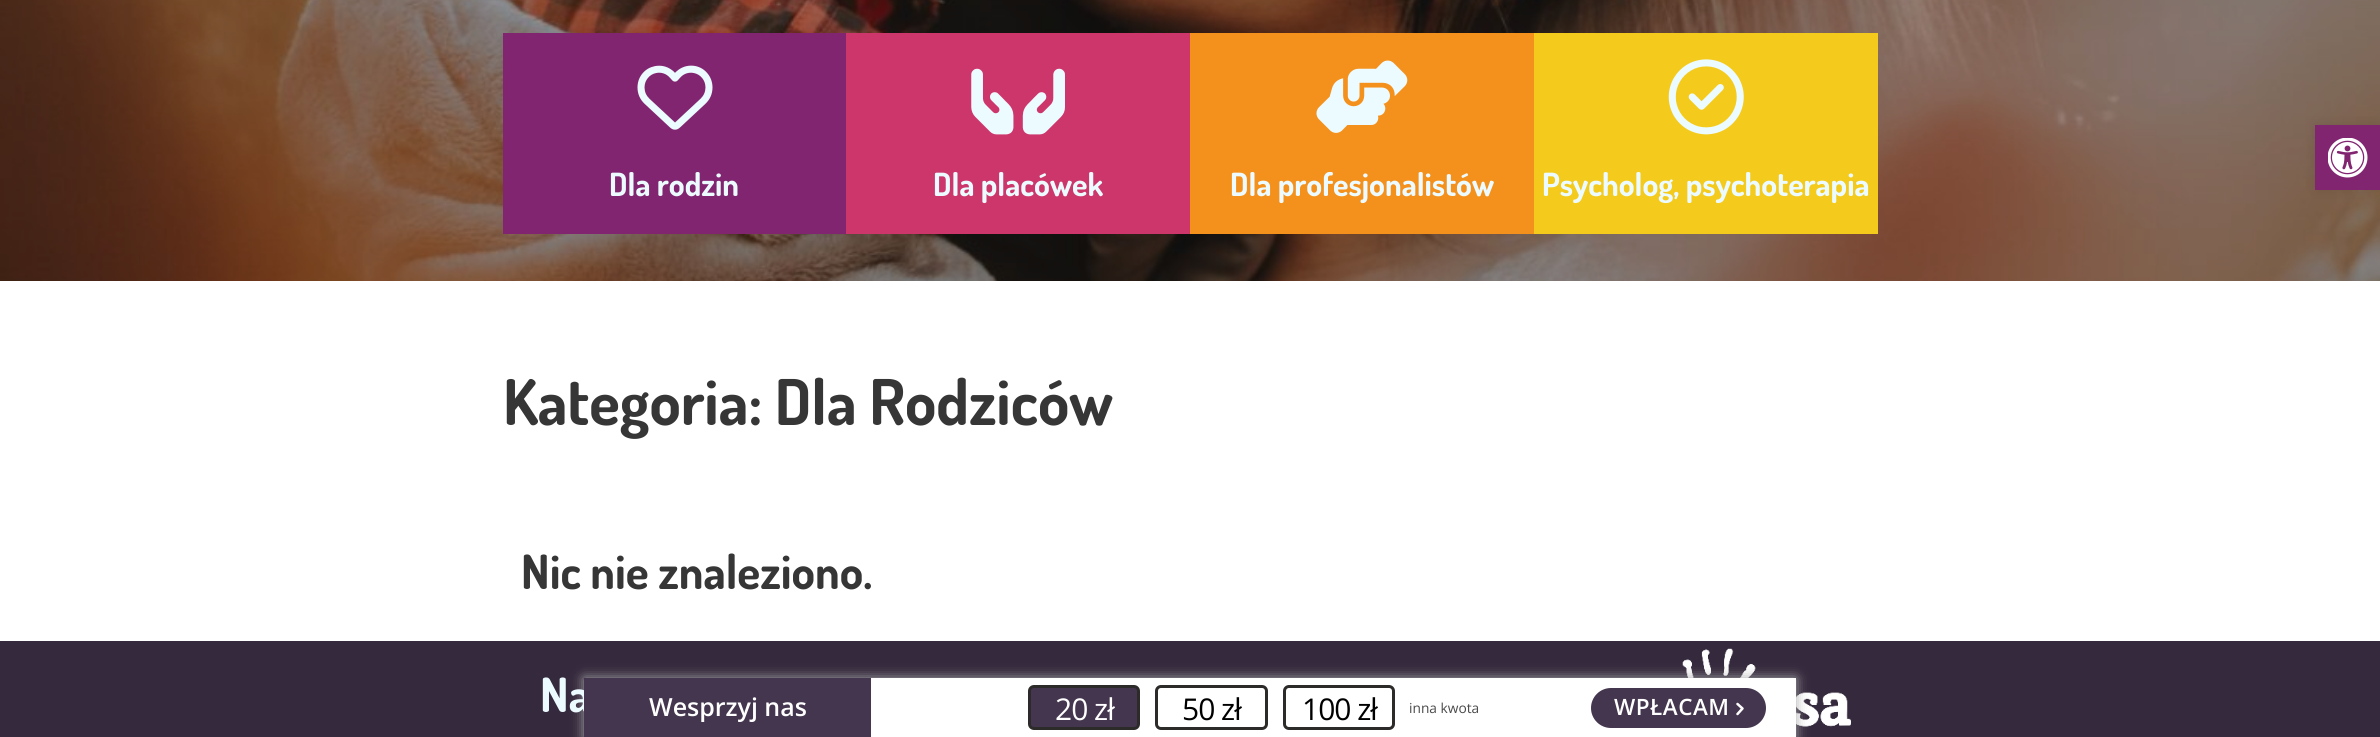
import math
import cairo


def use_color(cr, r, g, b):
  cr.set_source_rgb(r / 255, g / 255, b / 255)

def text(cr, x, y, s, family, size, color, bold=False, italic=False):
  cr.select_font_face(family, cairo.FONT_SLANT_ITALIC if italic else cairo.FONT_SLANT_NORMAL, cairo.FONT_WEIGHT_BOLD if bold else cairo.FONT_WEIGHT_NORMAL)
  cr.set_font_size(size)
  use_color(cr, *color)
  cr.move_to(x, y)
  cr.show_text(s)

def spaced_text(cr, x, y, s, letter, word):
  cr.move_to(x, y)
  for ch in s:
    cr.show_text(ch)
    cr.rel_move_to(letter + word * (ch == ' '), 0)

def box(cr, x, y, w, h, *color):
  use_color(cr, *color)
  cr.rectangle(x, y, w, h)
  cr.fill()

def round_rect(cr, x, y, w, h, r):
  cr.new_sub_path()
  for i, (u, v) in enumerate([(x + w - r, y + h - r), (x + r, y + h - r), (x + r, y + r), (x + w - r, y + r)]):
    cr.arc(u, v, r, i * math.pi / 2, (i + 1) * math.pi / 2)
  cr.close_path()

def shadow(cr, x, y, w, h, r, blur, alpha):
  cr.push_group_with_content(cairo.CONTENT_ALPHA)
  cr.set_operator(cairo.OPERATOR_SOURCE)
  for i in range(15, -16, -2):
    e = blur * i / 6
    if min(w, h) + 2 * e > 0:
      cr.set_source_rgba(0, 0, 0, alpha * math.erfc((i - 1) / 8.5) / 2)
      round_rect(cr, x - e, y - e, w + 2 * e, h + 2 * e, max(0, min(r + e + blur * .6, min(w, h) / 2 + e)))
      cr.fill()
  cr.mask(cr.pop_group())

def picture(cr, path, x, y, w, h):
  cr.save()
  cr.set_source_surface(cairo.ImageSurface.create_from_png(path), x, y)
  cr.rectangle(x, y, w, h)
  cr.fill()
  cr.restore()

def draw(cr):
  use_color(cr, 255, 255, 255)
  cr.paint()
  picture(cr, "img_01.png", 0, 0, 2380, 281)
  box(cr, 503, 33, 343, 201, 129, 37, 112)
  picture(cr, "img_02.png", 637, 65, 76, 65)
  box(cr, 846, 33, 344, 201, 205, 54, 107)
  picture(cr, "img_03.png", 971, 68, 94, 67)
  box(cr, 1190, 33, 344, 201, 244, 145, 28)
  picture(cr, "img_04.png", 1316, 60, 92, 73)
  box(cr, 1534, 33, 344, 201, 244, 203, 28)
  picture(cr, "img_05.png", 1668, 59, 76, 76)
  use_color(cr, 0, 0, 0)
  shadow(cr, 2315, 125, 65, 65, 0, 6, 0.1)
  box(cr, 2315, 125, 65, 65, 129, 37, 112)
  picture(cr, "img_06.png", 2328, 138, 40, 40)
  box(cr, 0, 641, 2380, 96, 53, 41, 61)
  picture(cr, "img_07.png", 1682, 648, 169, 79)
  use_color(cr, 170, 170, 170)
  shadow(cr, 584, 678, 1212, 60, 0, 6, 1)
  box(cr, 871, 678, 925, 59, 255, 255, 255)
  use_color(cr, 68, 54, 78)
  round_rect(cr, 1029.5, 686.5, 109, 42, 4.5)
  cr.fill_preserve()
  use_color(cr, 45, 42, 42)
  cr.set_line_width(3)
  cr.stroke()
  round_rect(cr, 1156.5, 686.5, 110, 42, 4.5)
  cr.stroke()
  round_rect(cr, 1284.5, 686.5, 109, 42, 4.5)
  cr.stroke()
  use_color(cr, 68, 54, 78)
  round_rect(cr, 1591, 688, 175, 40, 20)
  cr.fill()
  cr.new_path()
  cr.move_to(1737.5, 704)
  cr.line_to(1742.5, 708.5)
  cr.line_to(1737.5, 714)
  use_color(cr, 255, 255, 255)
  cr.set_line_width(2.5)
  cr.set_line_cap(cairo.LINE_CAP_ROUND)
  cr.set_line_join(cairo.LINE_JOIN_ROUND)
  cr.stroke()
  text(cr, 609, 196, "Dla rodzin", "Dosis", 31.9, (236, 251, 255), bold=True)
  text(cr, 933, 196, "Dla placówek", "Dosis", 31.9, (236, 251, 255), bold=True)
  text(cr, 1230, 196, "Dla profesjonalistów", "Dosis", 31.9, (236, 251, 255), bold=True)
  text(cr, 1542, 196, "Psycholog, psychoterapia", "Dosis", 31.9, (236, 251, 255), bold=True)
  text(cr, 503, 425, "Kategoria: Dla Rodziców", "Dosis", 63, (54, 54, 54), bold=True)
  text(cr, 521, 589, "Nic nie znaleziono.", "Dosis", 47.25, (54, 54, 54), bold=True)
  text(cr, 540, 712, "Na", "Dosis", 47.25, (236, 251, 255), bold=True)
  box(cr, 584, 678, 287, 59, 68, 54, 78)
  text(cr, 649, 716, "Wesprzyj nas", "Open Sans SemiBold", 25, (255, 255, 255))
  cr.select_font_face("Open Sans")
  cr.set_font_size(30)
  spaced_text(cr, 1055, 720, "20 zł", -1, 0)
  use_color(cr, 0, 0, 0)
  spaced_text(cr, 1182, 720, "50 zł", -1, 0)
  spaced_text(cr, 1302, 720, "100 zł", -1, 0)
  text(cr, 1409, 713, "inna kwota", "Open Sans", 13.75, (74, 74, 74))
  cr.select_font_face("Open Sans SemiBold")
  cr.set_font_size(22.5)
  use_color(cr, 255, 255, 255)
  spaced_text(cr, 1614, 715, "WPŁACAM", 0.5, 0)


surface = cairo.ImageSurface(cairo.FORMAT_RGB24, 2380, 737)
cr = cairo.Context(surface)
options = cairo.FontOptions()
options.set_hint_metrics(cairo.HINT_METRICS_OFF)
options.set_hint_style(cairo.HINT_STYLE_NONE)
cr.set_font_options(options)
cr.set_miter_limit(4)
draw(cr)
surface.write_to_png("out.png")
